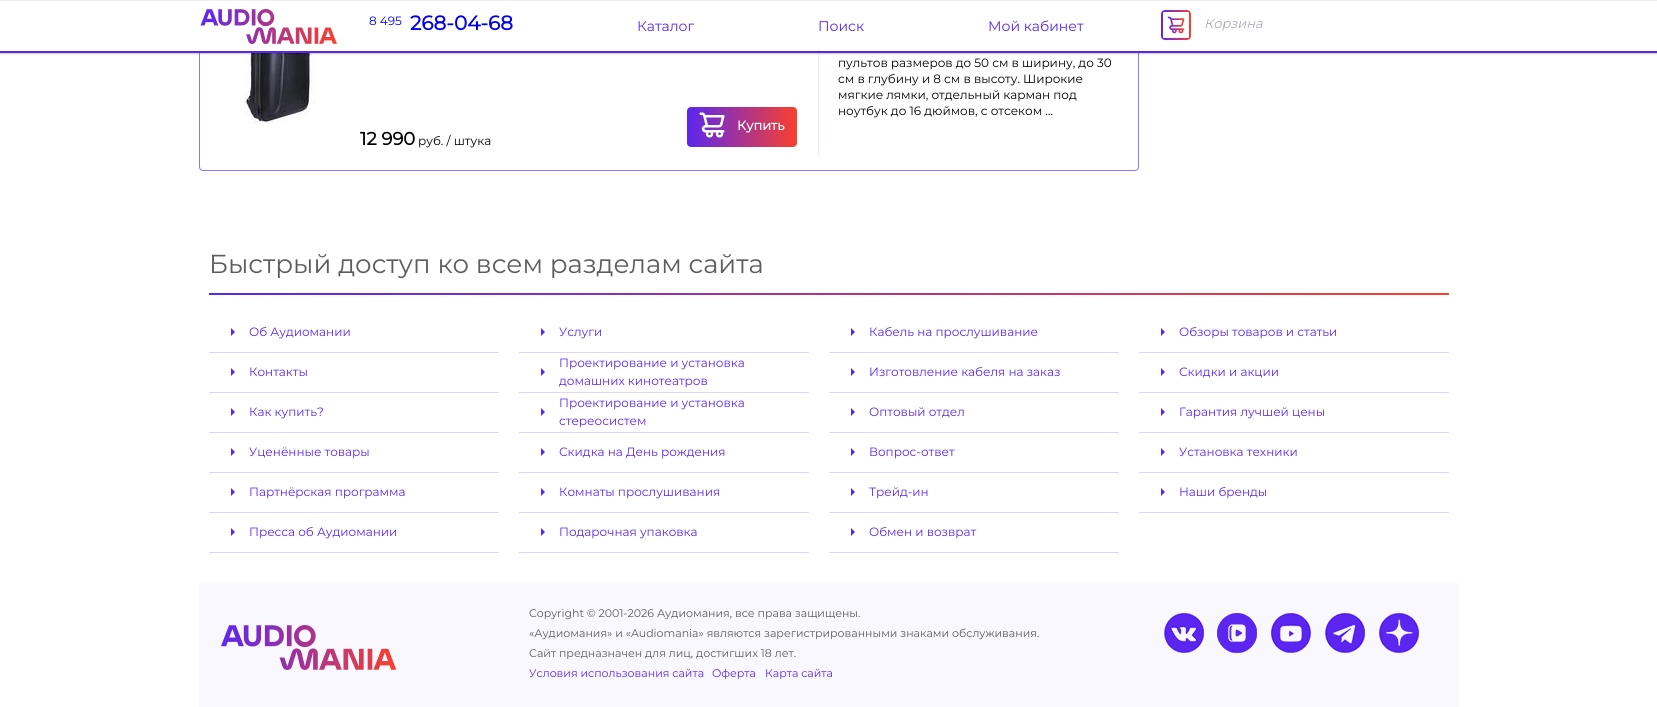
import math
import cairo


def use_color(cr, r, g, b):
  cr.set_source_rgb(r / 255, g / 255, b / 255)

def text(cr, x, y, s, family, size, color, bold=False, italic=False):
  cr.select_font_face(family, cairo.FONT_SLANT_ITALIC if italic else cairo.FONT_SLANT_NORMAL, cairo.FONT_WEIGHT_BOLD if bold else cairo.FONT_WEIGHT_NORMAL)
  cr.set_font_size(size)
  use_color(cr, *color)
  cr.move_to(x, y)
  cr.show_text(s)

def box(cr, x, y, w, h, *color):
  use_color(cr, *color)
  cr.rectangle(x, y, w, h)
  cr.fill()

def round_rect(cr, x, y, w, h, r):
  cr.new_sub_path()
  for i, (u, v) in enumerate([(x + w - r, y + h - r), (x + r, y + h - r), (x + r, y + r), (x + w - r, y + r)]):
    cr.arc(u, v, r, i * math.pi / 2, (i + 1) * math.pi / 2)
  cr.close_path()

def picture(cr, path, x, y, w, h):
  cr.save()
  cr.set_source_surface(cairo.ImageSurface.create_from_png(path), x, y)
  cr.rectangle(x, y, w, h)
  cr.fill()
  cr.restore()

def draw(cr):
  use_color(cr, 255, 255, 255)
  cr.paint()
  round_rect(cr, 199.5, -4.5, 939, 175, 3.5)
  use_color(cr, 144, 120, 247)
  cr.set_line_width(1)
  cr.stroke()
  box(cr, 199, 1, 940, 50, 255, 255, 255)
  box(cr, 0, 0, 1657, 1, 239, 239, 239)
  box(cr, 0, 51, 1657, 2, 91, 39, 240)
  picture(cr, "img_01.png", 200, 9, 137, 35)
  picture(cr, "img_02.png", 1161, 10, 30, 30)
  box(cr, 818, 53, 1, 104, 230, 243, 255)
  picture(cr, "img_03.png", 244, 53, 72, 71)
  gradient = cairo.LinearGradient(829, 53, 829, 55)
  gradient.add_color_stop_rgba(0, 0, 0, 0, 0.2)
  gradient.add_color_stop_rgba(1, 0, 0, 0, 0)
  cr.set_source(gradient)
  cr.rectangle(0, 53, 1657, 2)
  cr.fill()
  gradient = cairo.LinearGradient(797, 127, 687, 127)
  gradient.add_color_stop_rgba(0, 0.976, 0.251, 0.176, 1)
  gradient.add_color_stop_rgba(1, 0.357, 0.153, 0.941, 1)
  cr.set_source(gradient)
  round_rect(cr, 687, 107, 110, 40, 4)
  cr.fill()
  picture(cr, "img_04.png", 699, 112, 26, 26)
  picture(cr, "img_05.png", 209, 293, 1240, 2)
  box(cr, 209, 352, 290, 1, 218, 215, 253)
  use_color(cr, 91, 39, 240)
  cr.new_path()
  cr.move_to(231, 336)
  cr.line_to(231, 328)
  cr.line_to(235, 332)
  cr.close_path()
  cr.fill()
  box(cr, 519, 352, 290, 1, 218, 215, 253)
  use_color(cr, 91, 39, 240)
  cr.new_path()
  cr.move_to(541, 336)
  cr.line_to(541, 328)
  cr.line_to(545, 332)
  cr.close_path()
  cr.fill()
  box(cr, 829, 352, 290, 1, 218, 215, 253)
  use_color(cr, 91, 39, 240)
  cr.new_path()
  cr.move_to(851, 336)
  cr.line_to(851, 328)
  cr.line_to(855, 332)
  cr.close_path()
  cr.fill()
  box(cr, 1139, 352, 310, 1, 218, 215, 253)
  use_color(cr, 91, 39, 240)
  cr.new_path()
  cr.move_to(1161, 336)
  cr.line_to(1161, 328)
  cr.line_to(1165, 332)
  cr.close_path()
  cr.fill()
  box(cr, 209, 392, 290, 1, 218, 215, 253)
  use_color(cr, 91, 39, 240)
  cr.new_path()
  cr.move_to(231, 376)
  cr.line_to(231, 368)
  cr.line_to(235, 372)
  cr.close_path()
  cr.fill()
  box(cr, 519, 392, 290, 1, 218, 215, 253)
  use_color(cr, 91, 39, 240)
  cr.new_path()
  cr.move_to(541, 376)
  cr.line_to(541, 368)
  cr.line_to(545, 372)
  cr.close_path()
  cr.fill()
  box(cr, 829, 392, 290, 1, 218, 215, 253)
  use_color(cr, 91, 39, 240)
  cr.new_path()
  cr.move_to(851, 376)
  cr.line_to(851, 368)
  cr.line_to(855, 372)
  cr.close_path()
  cr.fill()
  box(cr, 1139, 392, 310, 1, 218, 215, 253)
  use_color(cr, 91, 39, 240)
  cr.new_path()
  cr.move_to(1161, 376)
  cr.line_to(1161, 368)
  cr.line_to(1165, 372)
  cr.close_path()
  cr.fill()
  box(cr, 209, 432, 290, 1, 218, 215, 253)
  use_color(cr, 91, 39, 240)
  cr.new_path()
  cr.move_to(231, 416)
  cr.line_to(231, 408)
  cr.line_to(235, 412)
  cr.close_path()
  cr.fill()
  box(cr, 519, 432, 290, 1, 218, 215, 253)
  use_color(cr, 91, 39, 240)
  cr.new_path()
  cr.move_to(541, 416)
  cr.line_to(541, 408)
  cr.line_to(545, 412)
  cr.close_path()
  cr.fill()
  box(cr, 829, 432, 290, 1, 218, 215, 253)
  use_color(cr, 91, 39, 240)
  cr.new_path()
  cr.move_to(851, 416)
  cr.line_to(851, 408)
  cr.line_to(855, 412)
  cr.close_path()
  cr.fill()
  box(cr, 1139, 432, 310, 1, 218, 215, 253)
  use_color(cr, 91, 39, 240)
  cr.new_path()
  cr.move_to(1161, 416)
  cr.line_to(1161, 408)
  cr.line_to(1165, 412)
  cr.close_path()
  cr.fill()
  box(cr, 209, 472, 290, 1, 218, 215, 253)
  use_color(cr, 91, 39, 240)
  cr.new_path()
  cr.move_to(231, 456)
  cr.line_to(231, 448)
  cr.line_to(235, 452)
  cr.close_path()
  cr.fill()
  box(cr, 519, 472, 290, 1, 218, 215, 253)
  use_color(cr, 91, 39, 240)
  cr.new_path()
  cr.move_to(541, 456)
  cr.line_to(541, 448)
  cr.line_to(545, 452)
  cr.close_path()
  cr.fill()
  box(cr, 829, 472, 290, 1, 218, 215, 253)
  use_color(cr, 91, 39, 240)
  cr.new_path()
  cr.move_to(851, 456)
  cr.line_to(851, 448)
  cr.line_to(855, 452)
  cr.close_path()
  cr.fill()
  box(cr, 1139, 472, 310, 1, 218, 215, 253)
  use_color(cr, 91, 39, 240)
  cr.new_path()
  cr.move_to(1161, 456)
  cr.line_to(1161, 448)
  cr.line_to(1165, 452)
  cr.close_path()
  cr.fill()
  box(cr, 209, 512, 290, 1, 218, 215, 253)
  use_color(cr, 91, 39, 240)
  cr.new_path()
  cr.move_to(231, 496)
  cr.line_to(231, 488)
  cr.line_to(235, 492)
  cr.close_path()
  cr.fill()
  box(cr, 519, 512, 290, 1, 218, 215, 253)
  use_color(cr, 91, 39, 240)
  cr.new_path()
  cr.move_to(541, 496)
  cr.line_to(541, 488)
  cr.line_to(545, 492)
  cr.close_path()
  cr.fill()
  box(cr, 829, 512, 290, 1, 218, 215, 253)
  use_color(cr, 91, 39, 240)
  cr.new_path()
  cr.move_to(851, 496)
  cr.line_to(851, 488)
  cr.line_to(855, 492)
  cr.close_path()
  cr.fill()
  box(cr, 1139, 512, 310, 1, 218, 215, 253)
  use_color(cr, 91, 39, 240)
  cr.new_path()
  cr.move_to(1161, 496)
  cr.line_to(1161, 488)
  cr.line_to(1165, 492)
  cr.close_path()
  cr.fill()
  box(cr, 209, 552, 290, 1, 218, 215, 253)
  use_color(cr, 91, 39, 240)
  cr.new_path()
  cr.move_to(231, 536)
  cr.line_to(231, 528)
  cr.line_to(235, 532)
  cr.close_path()
  cr.fill()
  box(cr, 519, 552, 290, 1, 218, 215, 253)
  use_color(cr, 91, 39, 240)
  cr.new_path()
  cr.move_to(541, 536)
  cr.line_to(541, 528)
  cr.line_to(545, 532)
  cr.close_path()
  cr.fill()
  box(cr, 829, 552, 290, 1, 218, 215, 253)
  use_color(cr, 91, 39, 240)
  cr.new_path()
  cr.move_to(851, 536)
  cr.line_to(851, 528)
  cr.line_to(855, 532)
  cr.close_path()
  cr.fill()
  box(cr, 199, 583, 1260, 124, 249, 248, 255)
  picture(cr, "img_06.png", 221, 625, 176, 45)
  picture(cr, "img_07.png", 1164, 613, 40, 40)
  picture(cr, "img_08.png", 1217, 613, 40, 40)
  picture(cr, "img_09.png", 1271, 613, 40, 40)
  picture(cr, "img_10.png", 1325, 613, 40, 40)
  picture(cr, "img_11.png", 1379, 613, 40, 40)
  text(cr, 369, 25, "8 495", "Montserrat Thin", 12, (0, 0, 238))
  text(cr, 410, 30, "268-04-68", "Montserrat", 20, (0, 0, 238), bold=True)
  text(cr, 637, 31, "Каталог", "Montserrat Thin", 14, (91, 39, 240))
  text(cr, 818, 31, "Поиск", "Montserrat Thin", 14, (91, 39, 240))
  text(cr, 988, 31, "Мой кабинет", "Montserrat Thin", 14, (91, 39, 240))
  text(cr, 1204, 28, "Корзина", "Montserrat Thin", 13, (173, 170, 182), italic=True)
  text(cr, 838, 67, "пультов размеров до 50 см в ширину, до 30", "Montserrat Thin", 12, (0, 0, 0))
  text(cr, 838, 83, "см в глубину и 8 см в высоту. Широкие", "Montserrat Thin", 12, (0, 0, 0))
  text(cr, 838, 99, "мягкие лямки, отдельный карман под", "Montserrat Thin", 12, (0, 0, 0))
  text(cr, 838, 115, "ноутбук до 16 дюймов, с отсеком …", "Montserrat Thin", 12, (0, 0, 0))
  text(cr, 737, 130, "Купить", "Montserrat", 13, (255, 255, 255), bold=True)
  text(cr, 360, 145, "12 990", "Montserrat", 18, (0, 0, 0), bold=True)
  text(cr, 418, 145, "руб. / штука", "Montserrat Thin", 12, (0, 0, 0))
  text(cr, 209, 273, "Быстрый доступ ко всем разделам сайта", "Montserrat Thin", 26, (92, 92, 92))
  text(cr, 249, 336, "Об Аудиомании", "Montserrat Thin", 12, (91, 39, 240))
  text(cr, 559, 336, "Услуги", "Montserrat Thin", 12, (91, 39, 240))
  text(cr, 869, 336, "Кабель на прослушивание", "Montserrat Thin", 12, (91, 39, 240))
  text(cr, 1179, 336, "Обзоры товаров и статьи", "Montserrat Thin", 12, (91, 39, 240))
  text(cr, 249, 376, "Контакты", "Montserrat Thin", 12, (91, 39, 240))
  text(cr, 559, 367, "Проектирование и установка", "Montserrat Thin", 12, (91, 39, 240))
  text(cr, 559, 385, "домашних кинотеатров", "Montserrat Thin", 12, (91, 39, 240))
  text(cr, 869, 376, "Изготовление кабеля на заказ", "Montserrat Thin", 12, (91, 39, 240))
  text(cr, 1179, 376, "Скидки и акции", "Montserrat Thin", 12, (91, 39, 240))
  text(cr, 249, 416, "Как купить?", "Montserrat Thin", 12, (91, 39, 240))
  text(cr, 559, 407, "Проектирование и установка", "Montserrat Thin", 12, (91, 39, 240))
  text(cr, 559, 425, "стереосистем", "Montserrat Thin", 12, (91, 39, 240))
  text(cr, 869, 416, "Оптовый отдел", "Montserrat Thin", 12, (91, 39, 240))
  text(cr, 1179, 416, "Гарантия лучшей цены", "Montserrat Thin", 12, (91, 39, 240))
  text(cr, 249, 456, "Уценённые товары", "Montserrat Thin", 12, (91, 39, 240))
  text(cr, 559, 456, "Скидка на День рождения", "Montserrat Thin", 12, (91, 39, 240))
  text(cr, 869, 456, "Вопрос-ответ", "Montserrat Thin", 12, (91, 39, 240))
  text(cr, 1179, 456, "Установка техники", "Montserrat Thin", 12, (91, 39, 240))
  text(cr, 249, 496, "Партнёрская программа", "Montserrat Thin", 12, (91, 39, 240))
  text(cr, 559, 496, "Комнаты прослушивания", "Montserrat Thin", 12, (91, 39, 240))
  text(cr, 869, 496, "Трейд-ин", "Montserrat Thin", 12, (91, 39, 240))
  text(cr, 1179, 496, "Наши бренды", "Montserrat Thin", 12, (91, 39, 240))
  text(cr, 249, 536, "Пресса об Аудиомании", "Montserrat Thin", 12, (91, 39, 240))
  text(cr, 559, 536, "Подарочная упаковка", "Montserrat Thin", 12, (91, 39, 240))
  text(cr, 869, 536, "Обмен и возврат", "Montserrat Thin", 12, (91, 39, 240))
  text(cr, 529, 617, "Copyright © 2001-2026 Аудиомания, все права защищены.", "Montserrat Thin", 11, (92, 92, 92))
  text(cr, 529, 637, "«Аудиомания» и «Audiomania» являются зарегистрированными знаками обслуживания.", "Montserrat Thin", 11, (92, 92, 92))
  text(cr, 529, 657, "Сайт предназначен для лиц, достигших 18 лет.", "Montserrat Thin", 11, (92, 92, 92))
  text(cr, 529, 677, "Условия использования сайта", "Montserrat Thin", 11, (91, 39, 240))
  text(cr, 712, 677, "Оферта", "Montserrat Thin", 11, (91, 39, 240))
  text(cr, 765, 677, "Карта сайта", "Montserrat Thin", 11, (91, 39, 240))


surface = cairo.ImageSurface(cairo.FORMAT_RGB24, 1657, 707)
cr = cairo.Context(surface)
options = cairo.FontOptions()
options.set_hint_metrics(cairo.HINT_METRICS_OFF)
options.set_hint_style(cairo.HINT_STYLE_NONE)
cr.set_font_options(options)
cr.set_miter_limit(4)
draw(cr)
surface.write_to_png("out.png")
